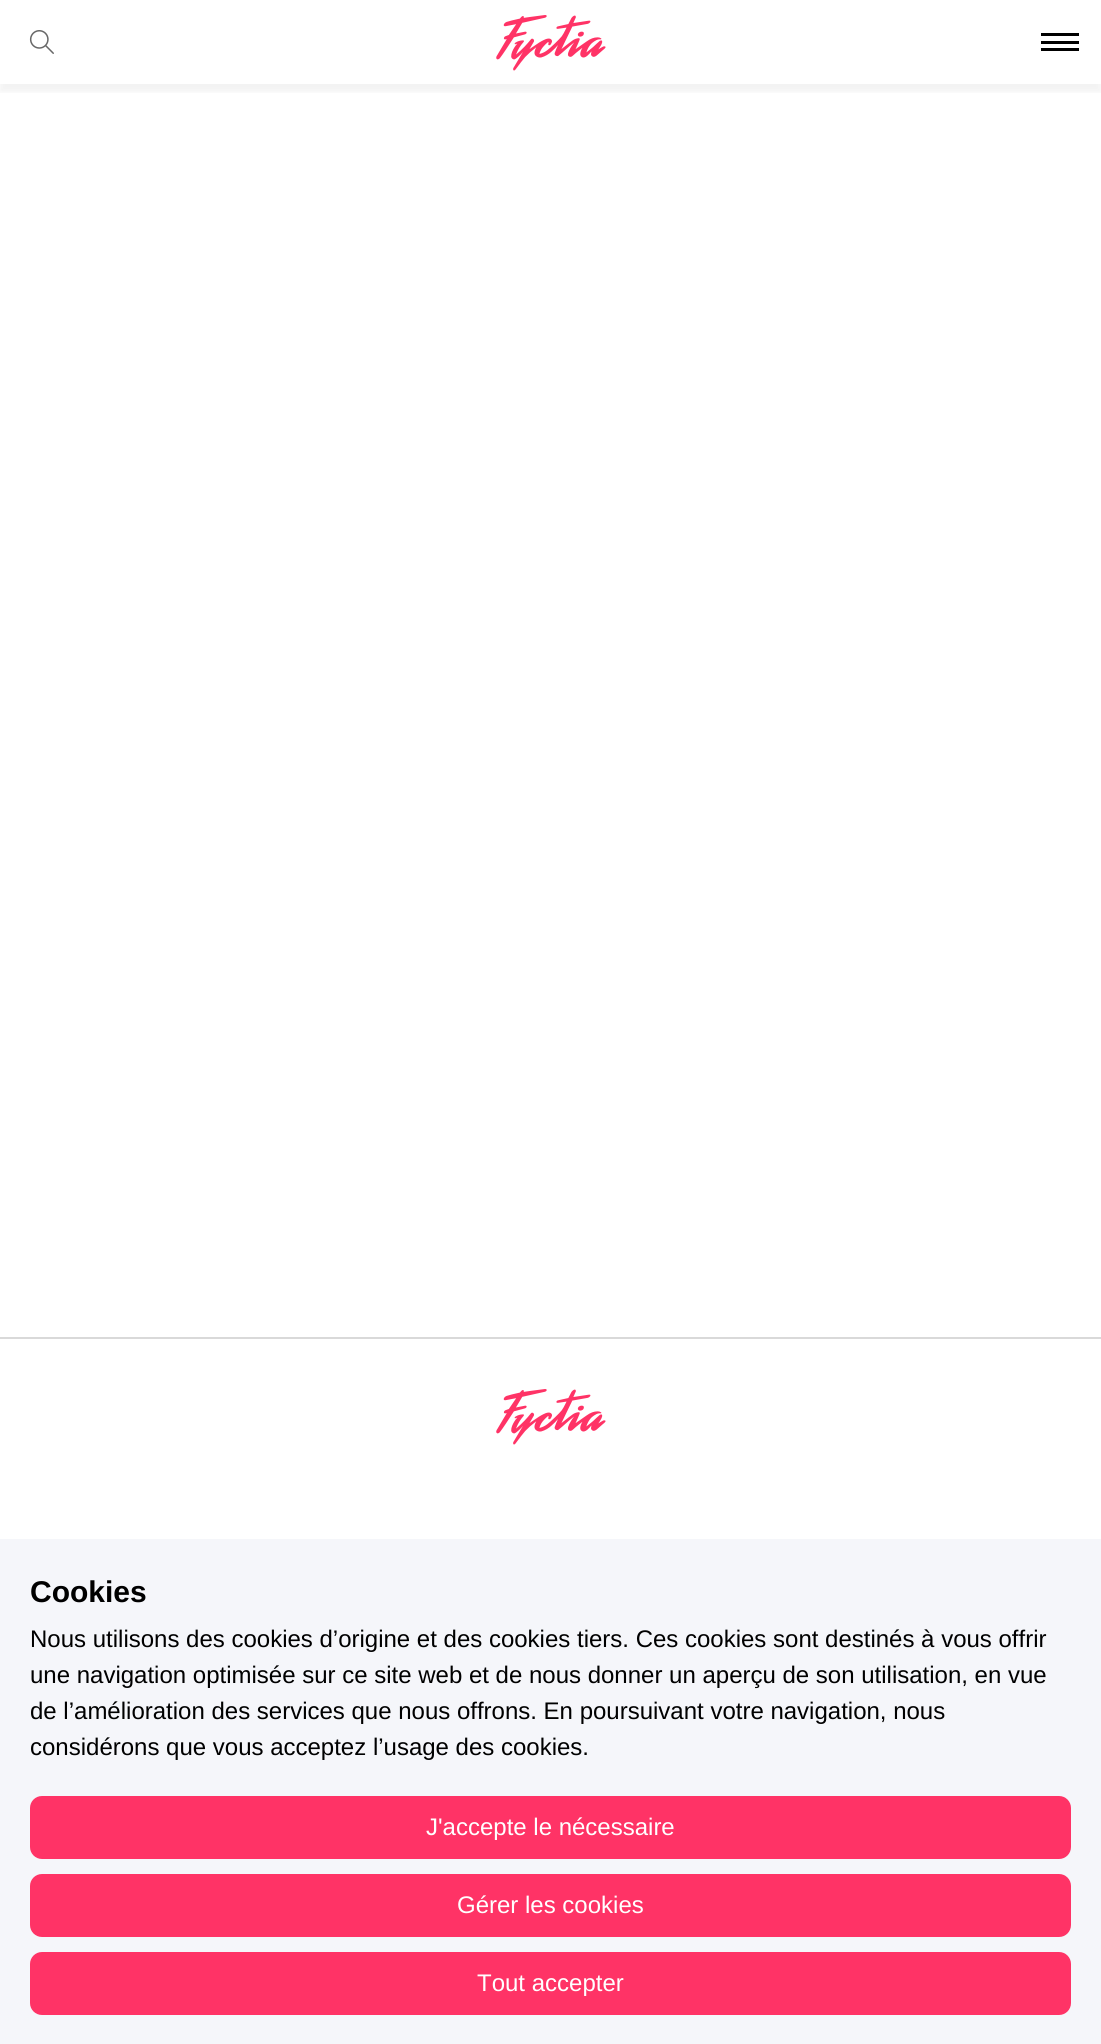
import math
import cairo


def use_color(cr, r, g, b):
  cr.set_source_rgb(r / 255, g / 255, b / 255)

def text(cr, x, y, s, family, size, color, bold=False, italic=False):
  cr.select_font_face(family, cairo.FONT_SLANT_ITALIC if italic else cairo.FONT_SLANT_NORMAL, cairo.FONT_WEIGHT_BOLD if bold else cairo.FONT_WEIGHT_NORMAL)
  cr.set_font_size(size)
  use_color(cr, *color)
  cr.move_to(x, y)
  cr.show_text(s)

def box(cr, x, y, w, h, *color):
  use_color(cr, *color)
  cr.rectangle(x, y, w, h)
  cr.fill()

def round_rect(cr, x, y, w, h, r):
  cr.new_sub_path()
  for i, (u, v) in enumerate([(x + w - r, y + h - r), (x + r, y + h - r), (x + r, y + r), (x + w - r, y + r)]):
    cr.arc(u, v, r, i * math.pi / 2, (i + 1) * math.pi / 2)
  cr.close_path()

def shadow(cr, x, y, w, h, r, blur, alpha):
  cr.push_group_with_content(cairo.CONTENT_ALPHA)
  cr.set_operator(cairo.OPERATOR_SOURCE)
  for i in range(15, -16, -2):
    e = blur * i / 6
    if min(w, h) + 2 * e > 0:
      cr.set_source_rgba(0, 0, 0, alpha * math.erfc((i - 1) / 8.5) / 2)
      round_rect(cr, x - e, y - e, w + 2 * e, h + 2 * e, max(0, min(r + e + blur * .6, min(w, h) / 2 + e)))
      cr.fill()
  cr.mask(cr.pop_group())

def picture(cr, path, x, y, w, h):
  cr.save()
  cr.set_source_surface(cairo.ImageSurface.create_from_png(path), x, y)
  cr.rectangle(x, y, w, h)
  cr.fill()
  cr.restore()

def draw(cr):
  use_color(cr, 255, 255, 255)
  cr.paint()
  cr.save()
  cr.rectangle(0, 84, 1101, 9)
  cr.clip()
  use_color(cr, 0, 0, 0)
  shadow(cr, 0, 8, 1101, 84, 0, 3, 0.05)
  cr.restore()
  picture(cr, "img_01.png", 29, 30, 25, 24)
  picture(cr, "img_02.png", 496, 15, 110, 56)
  box(cr, 1041, 41, 38, 3, 0, 0, 0)
  box(cr, 1041, 33, 38, 3, 0, 0, 0)
  box(cr, 1041, 48, 38, 3, 0, 0, 0)
  box(cr, 0, 1337, 1101, 2, 217, 217, 217)
  picture(cr, "img_02.png", 496, 1389, 110, 56)
  box(cr, 0, 1539, 1101, 505, 245, 246, 250)
  use_color(cr, 255, 51, 102)
  round_rect(cr, 30, 1796, 1041, 63, 12)
  cr.fill()
  round_rect(cr, 30, 1874, 1041, 63, 12)
  cr.fill()
  round_rect(cr, 30, 1952, 1041, 63, 12)
  cr.fill()
  text(cr, 30, 1602, "Cookies", "Liberation Sans", 30, (0, 0, 0), bold=True)
  text(cr, 30, 1647, "Nous utilisons des cookies d’origine et des cookies tiers. Ces cookies sont destinés à vous offrir", "Liberation Sans", 24, (0, 0, 0))
  text(cr, 30, 1683, "une navigation optimisée sur ce site web et de nous donner un aperçu de son utilisation, en vue", "Liberation Sans", 24, (0, 0, 0))
  text(cr, 30, 1719, "de l’amélioration des services que nous offrons. En poursuivant votre navigation, nous", "Liberation Sans", 24, (0, 0, 0))
  text(cr, 30, 1755, "considérons que vous acceptez l’usage des cookies.", "Liberation Sans", 24, (0, 0, 0))
  text(cr, 426, 1835, "J'accepte le nécessaire", "Liberation Sans", 24, (255, 255, 255))
  text(cr, 457, 1913, "Gérer les cookies", "Liberation Sans", 24, (255, 255, 255))
  text(cr, 477, 1991, "Tout accepter", "Liberation Sans", 24, (255, 255, 255))


surface = cairo.ImageSurface(cairo.FORMAT_RGB24, 1101, 2044)
cr = cairo.Context(surface)
options = cairo.FontOptions()
options.set_hint_metrics(cairo.HINT_METRICS_OFF)
options.set_hint_style(cairo.HINT_STYLE_NONE)
cr.set_font_options(options)
cr.set_miter_limit(4)
draw(cr)
surface.write_to_png("out.png")
